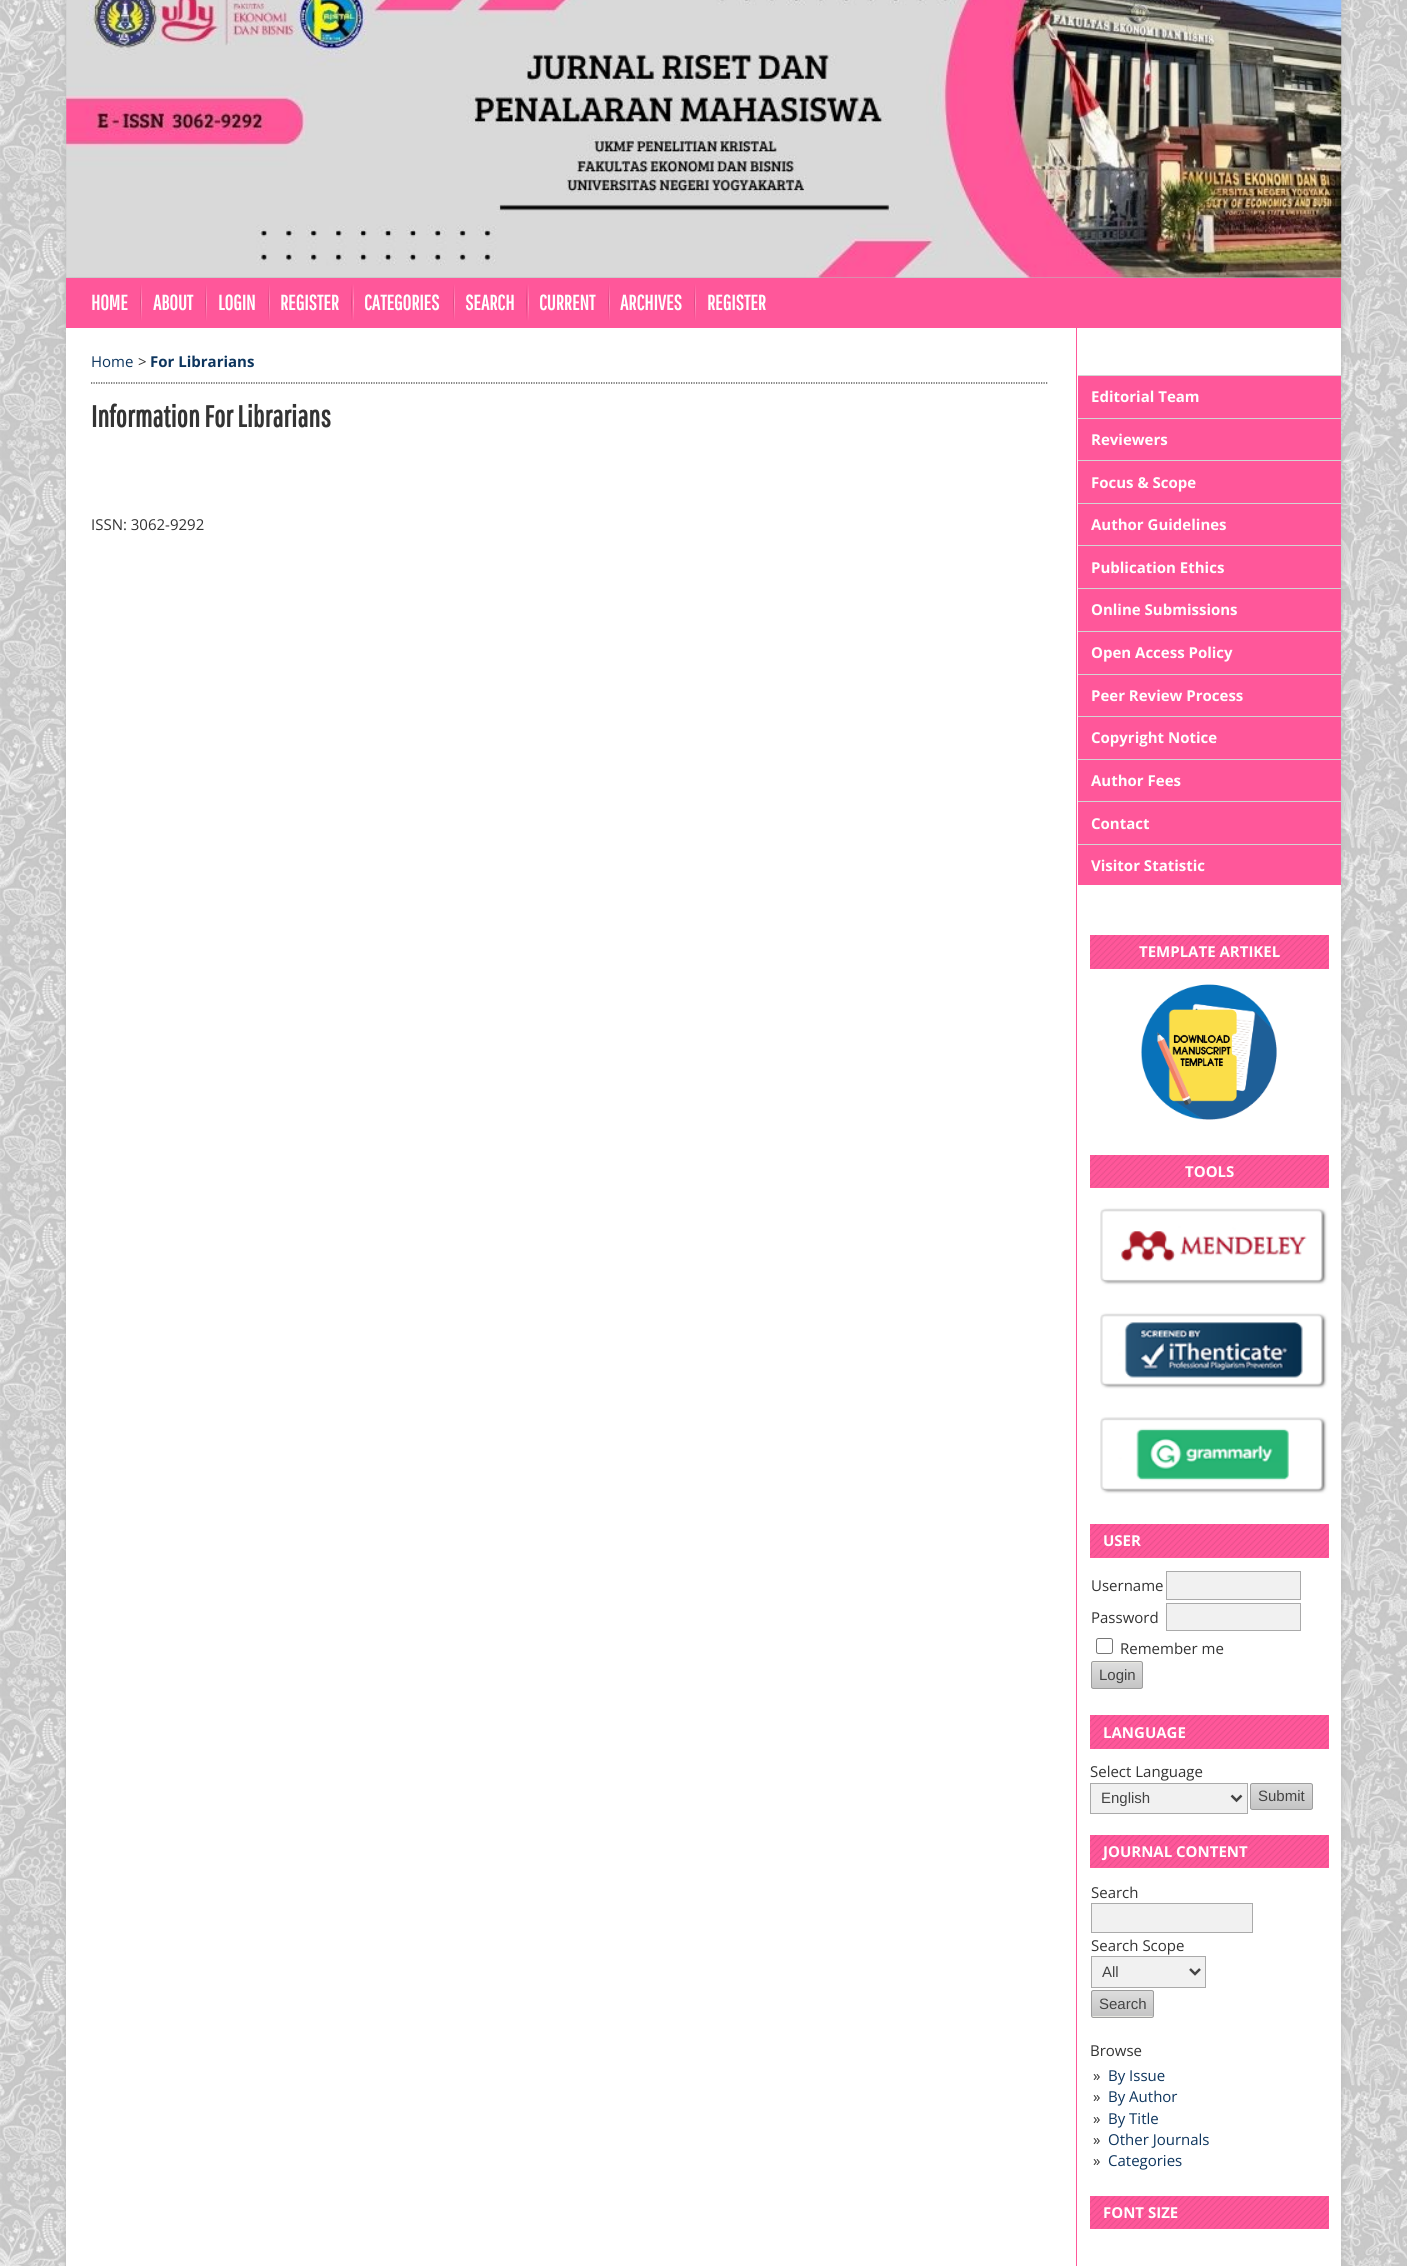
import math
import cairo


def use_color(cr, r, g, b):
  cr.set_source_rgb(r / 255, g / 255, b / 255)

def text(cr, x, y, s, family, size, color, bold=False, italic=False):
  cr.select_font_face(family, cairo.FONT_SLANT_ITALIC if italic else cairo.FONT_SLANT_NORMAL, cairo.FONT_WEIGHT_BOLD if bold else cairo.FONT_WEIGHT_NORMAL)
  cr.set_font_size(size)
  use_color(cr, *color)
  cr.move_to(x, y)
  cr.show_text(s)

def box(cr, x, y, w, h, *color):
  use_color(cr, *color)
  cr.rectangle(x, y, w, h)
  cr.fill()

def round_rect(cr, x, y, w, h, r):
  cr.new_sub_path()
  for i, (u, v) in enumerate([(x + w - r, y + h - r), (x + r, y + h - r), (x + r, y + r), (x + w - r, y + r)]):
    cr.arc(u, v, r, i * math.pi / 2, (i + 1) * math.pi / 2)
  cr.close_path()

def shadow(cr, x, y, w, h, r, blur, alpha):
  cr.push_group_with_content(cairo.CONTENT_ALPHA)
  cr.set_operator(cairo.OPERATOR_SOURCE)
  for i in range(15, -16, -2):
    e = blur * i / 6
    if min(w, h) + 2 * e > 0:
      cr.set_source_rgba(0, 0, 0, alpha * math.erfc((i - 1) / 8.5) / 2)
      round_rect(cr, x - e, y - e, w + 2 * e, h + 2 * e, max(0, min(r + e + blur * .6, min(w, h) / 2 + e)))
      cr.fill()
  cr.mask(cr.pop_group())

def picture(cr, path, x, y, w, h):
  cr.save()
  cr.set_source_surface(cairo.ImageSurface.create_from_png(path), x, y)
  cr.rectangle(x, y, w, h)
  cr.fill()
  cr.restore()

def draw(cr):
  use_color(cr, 255, 255, 255)
  cr.paint()
  picture(cr, "img_01.png", 0, 0, 1407, 2266)
  picture(cr, "img_02.png", 0, 0, 1407, 2266)
  use_color(cr, 187, 187, 187)
  shadow(cr, 66, -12, 1275, 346, 0, 4, 1)
  picture(cr, "img_03.png", 66, 0, 1276, 278)
  shadow(cr, 66, 284, 1275, 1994, 0, 4, 1)
  box(cr, 66, 328, 1275, 1938, 255, 255, 255)
  box(cr, 66, 278, 1275, 50, 255, 87, 154)
  gradient = cairo.LinearGradient(141, 284, 141, 321)
  gradient.add_color_stop_rgba(0, 1, 0.341, 0.604, 1)
  gradient.add_color_stop_rgba(0.5, 0.851, 0.29, 0.514, 1)
  gradient.add_color_stop_rgba(1, 1, 0.341, 0.604, 1)
  cr.set_source(gradient)
  cr.rectangle(140, 284, 1, 37)
  cr.fill()
  gradient = cairo.LinearGradient(142, 284, 142, 321)
  gradient.add_color_stop_rgba(0, 1, 0.341, 0.604, 1)
  gradient.add_color_stop_rgba(0.5, 1, 0.573, 0.741, 1)
  gradient.add_color_stop_rgba(1, 1, 0.341, 0.604, 1)
  cr.set_source(gradient)
  cr.rectangle(141, 284, 1, 37)
  cr.fill()
  gradient = cairo.LinearGradient(206, 284, 206, 321)
  gradient.add_color_stop_rgba(0, 1, 0.341, 0.604, 1)
  gradient.add_color_stop_rgba(0.5, 0.851, 0.29, 0.514, 1)
  gradient.add_color_stop_rgba(1, 1, 0.341, 0.604, 1)
  cr.set_source(gradient)
  cr.rectangle(205, 284, 1, 37)
  cr.fill()
  gradient = cairo.LinearGradient(207, 284, 207, 321)
  gradient.add_color_stop_rgba(0, 1, 0.341, 0.604, 1)
  gradient.add_color_stop_rgba(0.5, 1, 0.573, 0.741, 1)
  gradient.add_color_stop_rgba(1, 1, 0.341, 0.604, 1)
  cr.set_source(gradient)
  cr.rectangle(206, 284, 1, 37)
  cr.fill()
  gradient = cairo.LinearGradient(268, 284, 268, 321)
  gradient.add_color_stop_rgba(0, 1, 0.341, 0.604, 1)
  gradient.add_color_stop_rgba(0.5, 0.851, 0.29, 0.514, 1)
  gradient.add_color_stop_rgba(1, 1, 0.341, 0.604, 1)
  cr.set_source(gradient)
  cr.rectangle(268, 284, 1, 37)
  cr.fill()
  gradient = cairo.LinearGradient(269, 284, 269, 321)
  gradient.add_color_stop_rgba(0, 1, 0.341, 0.604, 1)
  gradient.add_color_stop_rgba(0.5, 1, 0.573, 0.741, 1)
  gradient.add_color_stop_rgba(1, 1, 0.341, 0.604, 1)
  cr.set_source(gradient)
  cr.rectangle(269, 284, 1, 37)
  cr.fill()
  gradient = cairo.LinearGradient(352, 284, 352, 321)
  gradient.add_color_stop_rgba(0, 1, 0.341, 0.604, 1)
  gradient.add_color_stop_rgba(0.5, 0.851, 0.29, 0.514, 1)
  gradient.add_color_stop_rgba(1, 1, 0.341, 0.604, 1)
  cr.set_source(gradient)
  cr.rectangle(351, 284, 1, 37)
  cr.fill()
  gradient = cairo.LinearGradient(353, 284, 353, 321)
  gradient.add_color_stop_rgba(0, 1, 0.341, 0.604, 1)
  gradient.add_color_stop_rgba(0.5, 1, 0.573, 0.741, 1)
  gradient.add_color_stop_rgba(1, 1, 0.341, 0.604, 1)
  cr.set_source(gradient)
  cr.rectangle(353, 284, 1, 37)
  cr.fill()
  gradient = cairo.LinearGradient(453, 284, 453, 321)
  gradient.add_color_stop_rgba(0, 1, 0.341, 0.604, 1)
  gradient.add_color_stop_rgba(0.5, 0.851, 0.29, 0.514, 1)
  gradient.add_color_stop_rgba(1, 1, 0.341, 0.604, 1)
  cr.set_source(gradient)
  cr.rectangle(453, 284, 1, 37)
  cr.fill()
  gradient = cairo.LinearGradient(454, 284, 454, 321)
  gradient.add_color_stop_rgba(0, 1, 0.341, 0.604, 1)
  gradient.add_color_stop_rgba(0.5, 1, 0.573, 0.741, 1)
  gradient.add_color_stop_rgba(1, 1, 0.341, 0.604, 1)
  cr.set_source(gradient)
  cr.rectangle(454, 284, 1, 37)
  cr.fill()
  gradient = cairo.LinearGradient(527, 284, 527, 321)
  gradient.add_color_stop_rgba(0, 1, 0.341, 0.604, 1)
  gradient.add_color_stop_rgba(0.5, 0.851, 0.29, 0.514, 1)
  gradient.add_color_stop_rgba(1, 1, 0.341, 0.604, 1)
  cr.set_source(gradient)
  cr.rectangle(526, 284, 1, 37)
  cr.fill()
  gradient = cairo.LinearGradient(528, 284, 528, 321)
  gradient.add_color_stop_rgba(0, 1, 0.341, 0.604, 1)
  gradient.add_color_stop_rgba(0.5, 1, 0.573, 0.741, 1)
  gradient.add_color_stop_rgba(1, 1, 0.341, 0.604, 1)
  cr.set_source(gradient)
  cr.rectangle(528, 284, 1, 37)
  cr.fill()
  gradient = cairo.LinearGradient(608, 284, 608, 321)
  gradient.add_color_stop_rgba(0, 1, 0.341, 0.604, 1)
  gradient.add_color_stop_rgba(0.5, 0.851, 0.29, 0.514, 1)
  gradient.add_color_stop_rgba(1, 1, 0.341, 0.604, 1)
  cr.set_source(gradient)
  cr.rectangle(608, 284, 1, 37)
  cr.fill()
  gradient = cairo.LinearGradient(609, 284, 609, 321)
  gradient.add_color_stop_rgba(0, 1, 0.341, 0.604, 1)
  gradient.add_color_stop_rgba(0.5, 1, 0.573, 0.741, 1)
  gradient.add_color_stop_rgba(1, 1, 0.341, 0.604, 1)
  cr.set_source(gradient)
  cr.rectangle(609, 284, 1, 37)
  cr.fill()
  gradient = cairo.LinearGradient(694, 284, 694, 321)
  gradient.add_color_stop_rgba(0, 1, 0.341, 0.604, 1)
  gradient.add_color_stop_rgba(0.5, 0.851, 0.29, 0.514, 1)
  gradient.add_color_stop_rgba(1, 1, 0.341, 0.604, 1)
  cr.set_source(gradient)
  cr.rectangle(694, 284, 1, 37)
  cr.fill()
  gradient = cairo.LinearGradient(696, 284, 696, 321)
  gradient.add_color_stop_rgba(0, 1, 0.341, 0.604, 1)
  gradient.add_color_stop_rgba(0.5, 1, 0.573, 0.741, 1)
  gradient.add_color_stop_rgba(1, 1, 0.341, 0.604, 1)
  cr.set_source(gradient)
  cr.rectangle(695, 284, 1, 37)
  cr.fill()
  cr.new_path()
  cr.move_to(91, 383)
  cr.line_to(1047.5, 383)
  use_color(cr, 51, 51, 51)
  cr.set_line_width(1.2)
  cr.set_dash([1.25, 1.25])
  cr.stroke()
  box(cr, 1076, 328, 1, 1938, 255, 87, 154)
  box(cr, 1078, 376, 263, 42, 255, 87, 154)
  box(cr, 1078, 375, 263, 1, 211, 211, 211)
  box(cr, 1078, 419, 263, 41, 255, 87, 154)
  box(cr, 1078, 418, 263, 1, 211, 211, 211)
  box(cr, 1078, 461, 263, 42, 255, 87, 154)
  box(cr, 1078, 460, 263, 1, 211, 211, 211)
  box(cr, 1078, 504, 263, 41, 255, 87, 154)
  box(cr, 1078, 503, 263, 1, 211, 211, 211)
  box(cr, 1078, 546, 263, 42, 255, 87, 154)
  box(cr, 1078, 545, 263, 1, 211, 211, 211)
  box(cr, 1078, 589, 263, 42, 255, 87, 154)
  box(cr, 1078, 588, 263, 1, 211, 211, 211)
  box(cr, 1078, 632, 263, 42, 255, 87, 154)
  box(cr, 1078, 631, 263, 1, 211, 211, 211)
  box(cr, 1078, 675, 263, 41, 255, 87, 154)
  box(cr, 1078, 674, 263, 1, 211, 211, 211)
  box(cr, 1078, 717, 263, 42, 255, 87, 154)
  box(cr, 1078, 716, 263, 1, 211, 211, 211)
  box(cr, 1078, 760, 263, 41, 255, 87, 154)
  box(cr, 1078, 759, 263, 1, 211, 211, 211)
  box(cr, 1078, 802, 263, 42, 255, 87, 154)
  box(cr, 1078, 801, 263, 1, 211, 211, 211)
  box(cr, 1078, 845, 263, 40, 255, 87, 154)
  box(cr, 1078, 844, 263, 1, 211, 211, 211)
  box(cr, 1090, 935, 239, 34, 255, 87, 154)
  picture(cr, "img_04.png", 1090, 935, 239, 34)
  picture(cr, "img_05.png", 1141, 984, 136, 136)
  box(cr, 1090, 1155, 239, 33, 255, 87, 154)
  picture(cr, "img_06.png", 1090, 1155, 239, 33)
  picture(cr, "img_07.png", 1100, 1200, 242, 299)
  box(cr, 1090, 1524, 239, 34, 255, 87, 154)
  picture(cr, "img_08.png", 1090, 1524, 239, 34)
  use_color(cr, 241, 241, 241)
  cr.rectangle(1166.5, 1571.5, 134, 28)
  cr.fill_preserve()
  use_color(cr, 170, 170, 170)
  cr.set_line_width(1)
  cr.set_dash([])
  cr.stroke()
  use_color(cr, 241, 241, 241)
  cr.rectangle(1166.5, 1603.5, 134, 27)
  cr.fill_preserve()
  use_color(cr, 170, 170, 170)
  cr.stroke()
  round_rect(cr, 1096.5, 1638.5, 16, 15, 2)
  use_color(cr, 118, 118, 118)
  cr.stroke()
  use_color(cr, 232, 232, 225)
  round_rect(cr, 1091, 1661, 52, 28, 2.5)
  cr.fill()
  gradient = cairo.LinearGradient(1117, 1663, 1117, 1688)
  gradient.add_color_stop_rgba(0, 0.867, 0.867, 0.867, 1)
  gradient.add_color_stop_rgba(1, 0.769, 0.769, 0.769, 1)
  cr.set_source(gradient)
  cr.rectangle(1091, 1663, 52, 25)
  cr.fill()
  round_rect(cr, 1091.5, 1661.5, 51, 27, 2)
  use_color(cr, 157, 157, 157)
  cr.stroke()
  box(cr, 1090, 1715, 239, 34, 255, 87, 154)
  picture(cr, "img_09.png", 1090, 1715, 239, 34)
  use_color(cr, 241, 241, 241)
  cr.rectangle(1090.5, 1783.5, 157, 30)
  cr.fill_preserve()
  use_color(cr, 170, 170, 170)
  cr.stroke()
  cr.new_path()
  cr.move_to(1231.5, 1795.5)
  cr.line_to(1236.5, 1800.5)
  cr.line_to(1241.5, 1795.5)
  use_color(cr, 68, 68, 68)
  cr.set_line_width(2.5)
  cr.stroke()
  cr.save()
  round_rect(cr, 1250, 1783, 63, 27, 2.5)
  cr.clip()
  gradient = cairo.LinearGradient(1281, 1784, 1281, 1809)
  gradient.add_color_stop_rgba(0, 0.867, 0.867, 0.867, 1)
  gradient.add_color_stop_rgba(1, 0.769, 0.769, 0.769, 1)
  cr.set_source(gradient)
  cr.rectangle(1250, 1784, 63, 25)
  cr.fill()
  cr.restore()
  round_rect(cr, 1250.5, 1783.5, 62, 26, 2)
  use_color(cr, 157, 157, 157)
  cr.set_line_width(1)
  cr.stroke()
  box(cr, 1090, 1835, 239, 33, 255, 87, 154)
  picture(cr, "img_06.png", 1090, 1835, 239, 33)
  use_color(cr, 241, 241, 241)
  cr.rectangle(1091.5, 1903.5, 161, 29)
  cr.fill_preserve()
  use_color(cr, 170, 170, 170)
  cr.stroke()
  use_color(cr, 241, 241, 241)
  cr.rectangle(1091.5, 1956.5, 114, 31)
  cr.fill_preserve()
  use_color(cr, 170, 170, 170)
  cr.stroke()
  cr.new_path()
  cr.move_to(1190, 1969)
  cr.line_to(1195, 1974)
  cr.line_to(1200, 1969)
  use_color(cr, 68, 68, 68)
  cr.set_line_width(2.5)
  cr.stroke()
  use_color(cr, 232, 232, 225)
  round_rect(cr, 1091, 1990, 63, 28, 2.5)
  cr.fill()
  gradient = cairo.LinearGradient(1123, 1991, 1123, 2016)
  gradient.add_color_stop_rgba(0, 0.867, 0.867, 0.867, 1)
  gradient.add_color_stop_rgba(1, 0.769, 0.769, 0.769, 1)
  cr.set_source(gradient)
  cr.rectangle(1091, 1991, 63, 25)
  cr.fill()
  round_rect(cr, 1091.5, 1990.5, 62, 27, 2)
  use_color(cr, 157, 157, 157)
  cr.set_line_width(1)
  cr.stroke()
  box(cr, 1090, 2196, 239, 33, 255, 87, 154)
  picture(cr, "img_10.png", 1090, 2196, 239, 33)
  text(cr, 91, 310, "HOME", "Pathway Gothic One", 21, (255, 255, 255), bold=True)
  text(cr, 153, 310, "ABOUT", "Pathway Gothic One", 21, (255, 255, 255), bold=True)
  text(cr, 218, 310, "LOGIN", "Pathway Gothic One", 21, (255, 255, 255), bold=True)
  text(cr, 280, 310, "REGISTER", "Pathway Gothic One", 21, (255, 255, 255), bold=True)
  text(cr, 364, 310, "CATEGORIES", "Pathway Gothic One", 21, (255, 255, 255), bold=True)
  text(cr, 465, 310, "SEARCH", "Pathway Gothic One", 21, (255, 255, 255), bold=True)
  text(cr, 539, 310, "CURRENT", "Pathway Gothic One", 21, (255, 255, 255), bold=True)
  text(cr, 620, 310, "ARCHIVES", "Pathway Gothic One", 21, (255, 255, 255), bold=True)
  text(cr, 707, 310, "REGISTER", "Pathway Gothic One", 21, (255, 255, 255), bold=True)
  text(cr, 91, 367, "Home", "Open Sans", 15, (13, 53, 94))
  text(cr, 138, 367, ">", "Open Sans", 15, (51, 51, 51))
  text(cr, 150, 367, "For Librarians", "Open Sans", 15, (13, 53, 94), bold=True)
  text(cr, 91, 427, "Information For Librarians", "Pathway Gothic One", 30, (51, 51, 51), bold=True)
  text(cr, 91, 530, "ISSN: 3062-9292", "Open Sans", 15, (51, 51, 51))
  text(cr, 1091, 402, "Editorial Team", "Open Sans", 15, (255, 255, 255), bold=True)
  text(cr, 1091, 445, "Reviewers", "Open Sans", 15, (255, 255, 255), bold=True)
  text(cr, 1091, 488, "Focus & Scope", "Open Sans", 15, (255, 255, 255), bold=True)
  text(cr, 1091, 530, "Author Guidelines", "Open Sans", 15, (255, 255, 255), bold=True)
  text(cr, 1091, 573, "Publication Ethics", "Open Sans", 15, (255, 255, 255), bold=True)
  text(cr, 1091, 615, "Online Submissions", "Open Sans", 15, (255, 255, 255), bold=True)
  text(cr, 1091, 658, "Open Access Policy", "Open Sans", 15, (255, 255, 255), bold=True)
  text(cr, 1091, 701, "Peer Review Process", "Open Sans", 15, (255, 255, 255), bold=True)
  text(cr, 1091, 743, "Copyright Notice", "Open Sans", 15, (255, 255, 255), bold=True)
  text(cr, 1091, 786, "Author Fees", "Open Sans", 15, (255, 255, 255), bold=True)
  text(cr, 1091, 829, "Contact", "Open Sans", 15, (255, 255, 255), bold=True)
  text(cr, 1091, 871, "Visitor Statistic", "Open Sans", 15, (255, 255, 255), bold=True)
  text(cr, 1139, 957, "TEMPLATE ARTIKEL", "Open Sans", 15, (255, 255, 255), bold=True)
  text(cr, 1185, 1177, "TOOLS", "Open Sans", 15, (255, 255, 255), bold=True)
  text(cr, 1103, 1546, "USER", "Open Sans", 15, (255, 255, 255), bold=True)
  text(cr, 1091, 1591, "Username", "Open Sans", 15, (51, 51, 51))
  text(cr, 1091, 1623, "Password", "Open Sans", 15, (51, 51, 51))
  text(cr, 1120, 1654, "Remember me", "Open Sans", 15, (51, 51, 51))
  text(cr, 1099, 1680, "Login", "Liberation Sans", 15, (68, 68, 68))
  text(cr, 1103, 1738, "LANGUAGE", "Open Sans", 15, (255, 255, 255), bold=True)
  text(cr, 1090, 1777, "Select Language", "Open Sans", 15, (51, 51, 51))
  text(cr, 1101, 1803, "English", "Liberation Sans", 15, (68, 68, 68))
  text(cr, 1258, 1801, "Submit", "Liberation Sans", 15, (68, 68, 68))
  text(cr, 1103, 1857, "JOURNAL CONTENT", "Open Sans", 15, (255, 255, 255), bold=True)
  text(cr, 1091, 1898, "Search", "Open Sans", 15, (51, 51, 51))
  text(cr, 1091, 1951, "Search Scope", "Open Sans", 15, (51, 51, 51))
  text(cr, 1102, 1977, "All", "Liberation Sans", 15, (68, 68, 68))
  text(cr, 1099, 2009, "Search", "Liberation Sans", 15, (68, 68, 68))
  text(cr, 1090, 2056, "Browse", "Open Sans", 15, (51, 51, 51))
  text(cr, 1093, 2081, "»", "Open Sans", 15, (51, 51, 51))
  text(cr, 1108, 2081, "By Issue", "Open Sans", 15, (13, 53, 94))
  text(cr, 1093, 2102, "»", "Open Sans", 15, (51, 51, 51))
  text(cr, 1108, 2102, "By Author", "Open Sans", 15, (13, 53, 94))
  text(cr, 1093, 2124, "»", "Open Sans", 15, (51, 51, 51))
  text(cr, 1108, 2124, "By Title", "Open Sans", 15, (13, 53, 94))
  text(cr, 1093, 2145, "»", "Open Sans", 15, (51, 51, 51))
  text(cr, 1108, 2145, "Other Journals", "Open Sans", 15, (13, 53, 94))
  text(cr, 1093, 2166, "»", "Open Sans", 15, (51, 51, 51))
  text(cr, 1108, 2166, "Categories", "Open Sans", 15, (13, 53, 94))
  text(cr, 1103, 2218, "FONT SIZE", "Open Sans", 15, (255, 255, 255), bold=True)


surface = cairo.ImageSurface(cairo.FORMAT_RGB24, 1407, 2266)
cr = cairo.Context(surface)
options = cairo.FontOptions()
options.set_hint_metrics(cairo.HINT_METRICS_OFF)
options.set_hint_style(cairo.HINT_STYLE_NONE)
cr.set_font_options(options)
cr.set_miter_limit(4)
draw(cr)
surface.write_to_png("out.png")
